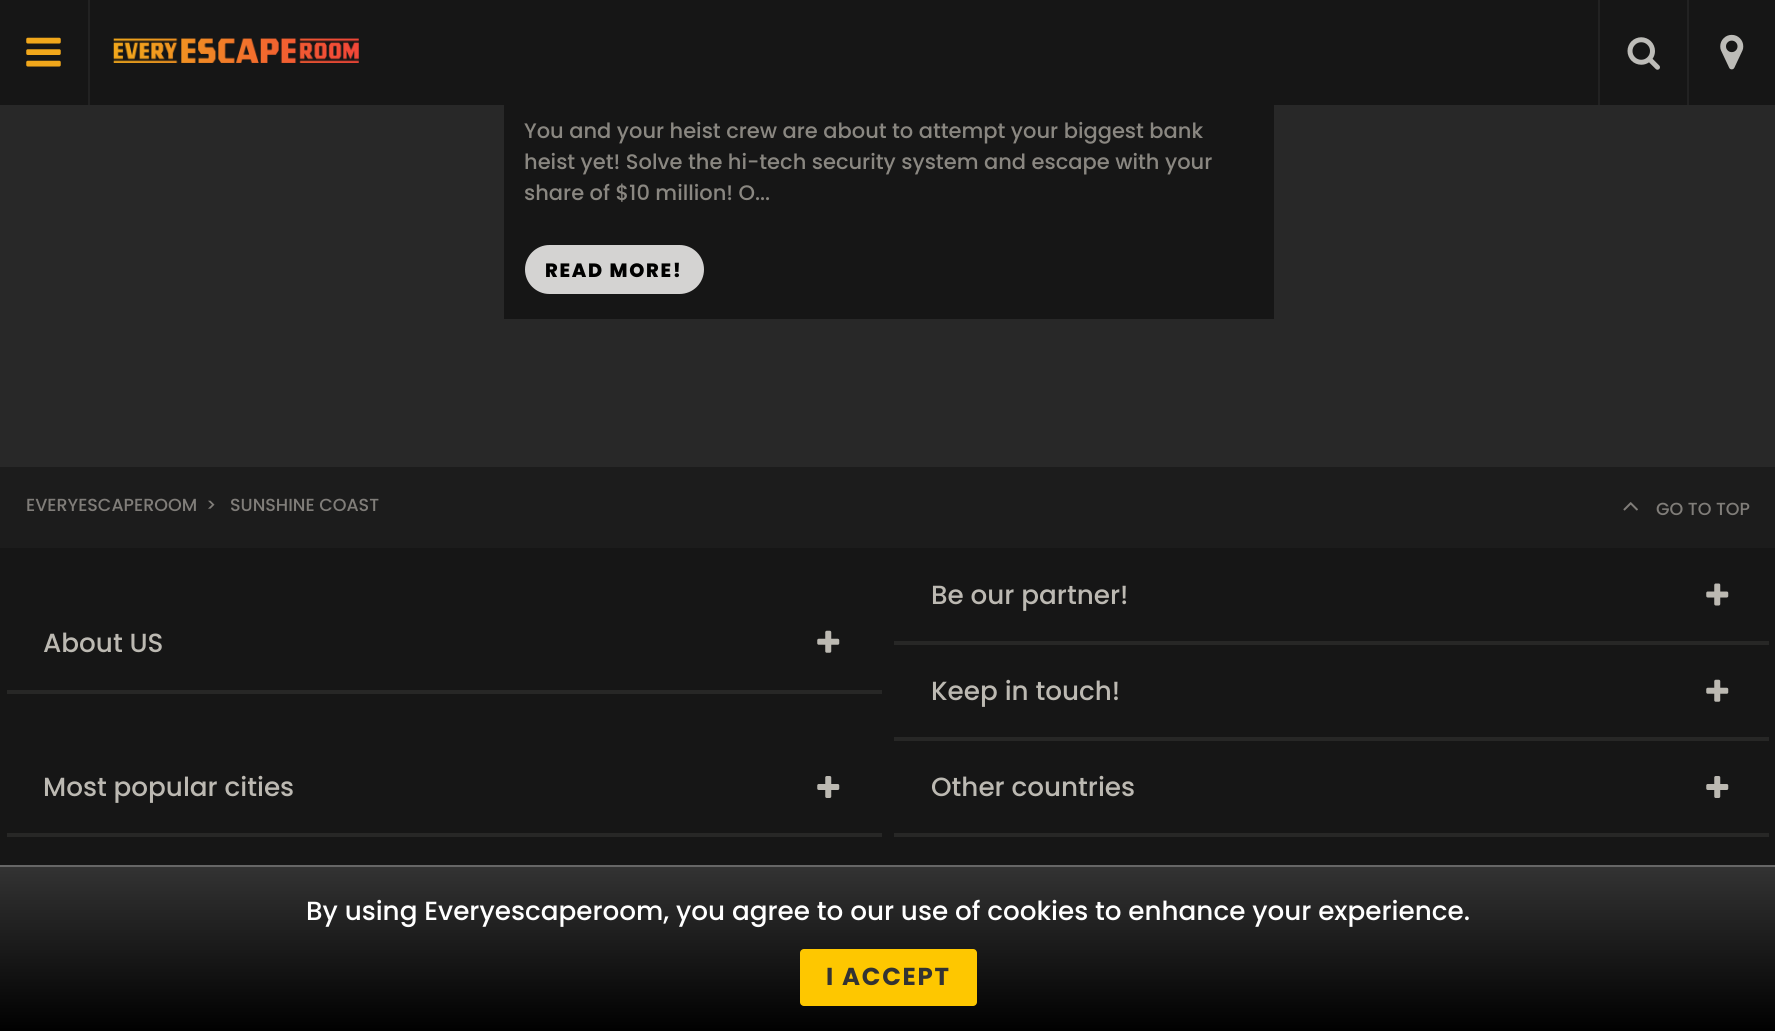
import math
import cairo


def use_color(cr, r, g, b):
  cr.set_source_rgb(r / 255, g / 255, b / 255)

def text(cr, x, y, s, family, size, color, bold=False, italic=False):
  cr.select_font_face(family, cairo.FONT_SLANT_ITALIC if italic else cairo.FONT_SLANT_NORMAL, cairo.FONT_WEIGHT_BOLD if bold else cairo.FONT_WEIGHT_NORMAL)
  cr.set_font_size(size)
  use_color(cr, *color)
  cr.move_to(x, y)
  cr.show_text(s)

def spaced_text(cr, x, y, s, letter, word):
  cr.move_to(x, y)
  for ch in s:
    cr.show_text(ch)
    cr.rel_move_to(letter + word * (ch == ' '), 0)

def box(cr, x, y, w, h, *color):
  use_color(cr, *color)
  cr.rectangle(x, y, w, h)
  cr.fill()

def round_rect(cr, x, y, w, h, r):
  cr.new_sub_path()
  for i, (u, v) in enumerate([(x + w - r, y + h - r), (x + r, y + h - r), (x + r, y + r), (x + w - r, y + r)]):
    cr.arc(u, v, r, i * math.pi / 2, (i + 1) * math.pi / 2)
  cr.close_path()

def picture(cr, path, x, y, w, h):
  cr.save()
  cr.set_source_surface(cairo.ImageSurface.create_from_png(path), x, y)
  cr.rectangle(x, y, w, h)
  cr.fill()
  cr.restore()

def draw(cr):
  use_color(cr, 40, 40, 40)
  cr.paint()
  box(cr, 0, 0, 1775, 105, 22, 22, 22)
  box(cr, 88, 0, 2, 105, 34, 34, 34)
  picture(cr, "img_01.png", 26, 37, 35, 30)
  picture(cr, "img_02.png", 113, 38, 246, 25)
  box(cr, 1598, 0, 2, 105, 34, 34, 34)
  picture(cr, "img_03.png", 1627, 37, 33, 33)
  box(cr, 1687, 0, 2, 105, 34, 34, 34)
  picture(cr, "img_04.png", 1720, 34, 24, 36)
  box(cr, 504, 105, 770, 214, 22, 22, 22)
  use_color(cr, 212, 211, 210)
  round_rect(cr, 525, 245, 179, 49, 24.5)
  cr.fill()
  box(cr, 0, 467, 1775, 81, 28, 28, 28)
  picture(cr, "img_05.png", 1623, 502, 15, 9)
  box(cr, 0, 548, 1775, 317, 22, 22, 22)
  box(cr, 7, 690, 875, 4, 39, 39, 38)
  picture(cr, "img_06.png", 817, 630, 23, 23)
  box(cr, 894, 641, 875, 4, 39, 39, 38)
  picture(cr, "img_07.png", 1706, 583, 23, 23)
  box(cr, 894, 737, 875, 4, 39, 39, 38)
  picture(cr, "img_06.png", 1706, 679, 23, 23)
  box(cr, 7, 833, 875, 4, 39, 39, 38)
  picture(cr, "img_08.png", 817, 776, 23, 22)
  box(cr, 894, 833, 875, 4, 39, 39, 38)
  picture(cr, "img_08.png", 1706, 776, 23, 22)
  gradient = cairo.LinearGradient(888, 866, 888, 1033)
  gradient.add_color_stop_rgba(0, 0.2, 0.2, 0.2, 1)
  gradient.add_color_stop_rgba(1, 0, 0, 0, 1)
  cr.set_source(gradient)
  cr.rectangle(0, 867, 1775, 164)
  cr.fill()
  box(cr, 0, 865, 1775, 2, 102, 102, 102)
  use_color(cr, 254, 199, 0)
  round_rect(cr, 800, 949, 177, 57, 4)
  cr.fill()
  text(cr, 524, 138, "You and your heist crew are about to attempt your biggest bank", "Poppins Medium", 21, (138, 135, 129))
  text(cr, 524, 169, "heist yet! Solve the hi-tech security system and escape with your", "Poppins Medium", 21, (138, 135, 129))
  text(cr, 524, 200, "share of $10 million! O...", "Poppins Medium", 21, (138, 135, 129))
  cr.select_font_face("Poppins ExtraBold")
  cr.set_font_size(19.25)
  use_color(cr, 0, 0, 0)
  spaced_text(cr, 545, 277, "READ MORE!", 1.75, 0)
  text(cr, 26, 511, "EVERYESCAPEROOM", "Poppins Medium", 17.5, (128, 125, 121))
  text(cr, 206, 511, ">", "Poppins Medium", 17.5, (128, 125, 121))
  text(cr, 230, 511, "SUNSHINE COAST", "Poppins Medium", 17.5, (128, 125, 121))
  text(cr, 1656, 515, "GO TO TOP", "Poppins Medium", 17.5, (128, 125, 121))
  text(cr, 43, 652, "About US", "Poppins Medium", 26.25, (188, 185, 178))
  text(cr, 931, 604, "Be our partner!", "Poppins Medium", 26.25, (188, 185, 178))
  text(cr, 931, 700, "Keep in touch!", "Poppins Medium", 26.25, (188, 185, 178))
  text(cr, 43, 796, "Most popular cities", "Poppins Medium", 26.25, (188, 185, 178))
  text(cr, 931, 796, "Other countries", "Poppins Medium", 26.25, (188, 185, 178))
  text(cr, 306, 920, "By using Everyescaperoom, you agree to our use of cookies to enhance your experience.", "Poppins Medium", 26.25, (255, 255, 255))
  cr.select_font_face("Poppins", cairo.FONT_SLANT_NORMAL, cairo.FONT_WEIGHT_BOLD)
  cr.set_font_size(24.5)
  use_color(cr, 51, 51, 51)
  spaced_text(cr, 826, 985, "I ACCEPT", 1.75, 0)


surface = cairo.ImageSurface(cairo.FORMAT_RGB24, 1775, 1031)
cr = cairo.Context(surface)
options = cairo.FontOptions()
options.set_hint_metrics(cairo.HINT_METRICS_OFF)
options.set_hint_style(cairo.HINT_STYLE_NONE)
cr.set_font_options(options)
cr.set_miter_limit(4)
draw(cr)
surface.write_to_png("out.png")
